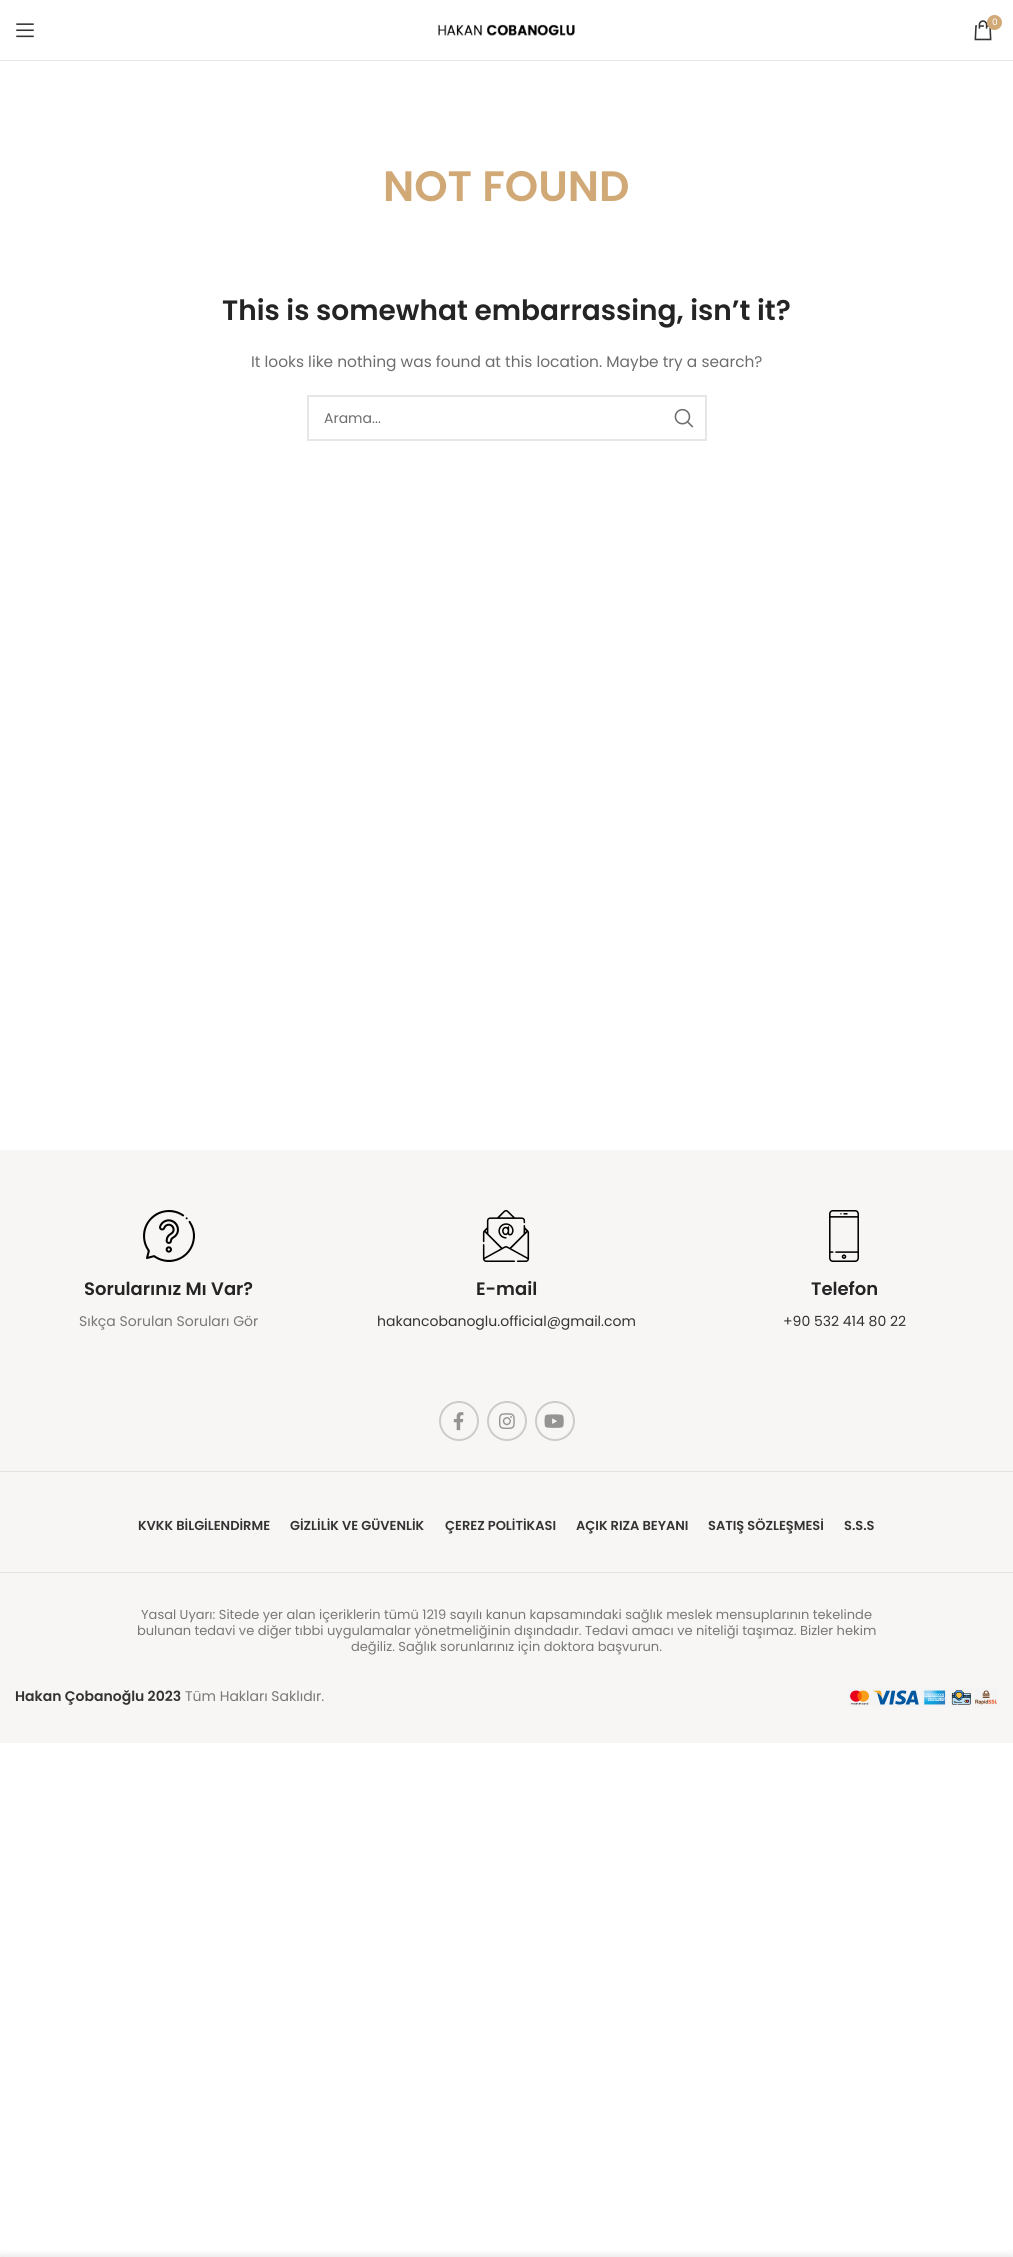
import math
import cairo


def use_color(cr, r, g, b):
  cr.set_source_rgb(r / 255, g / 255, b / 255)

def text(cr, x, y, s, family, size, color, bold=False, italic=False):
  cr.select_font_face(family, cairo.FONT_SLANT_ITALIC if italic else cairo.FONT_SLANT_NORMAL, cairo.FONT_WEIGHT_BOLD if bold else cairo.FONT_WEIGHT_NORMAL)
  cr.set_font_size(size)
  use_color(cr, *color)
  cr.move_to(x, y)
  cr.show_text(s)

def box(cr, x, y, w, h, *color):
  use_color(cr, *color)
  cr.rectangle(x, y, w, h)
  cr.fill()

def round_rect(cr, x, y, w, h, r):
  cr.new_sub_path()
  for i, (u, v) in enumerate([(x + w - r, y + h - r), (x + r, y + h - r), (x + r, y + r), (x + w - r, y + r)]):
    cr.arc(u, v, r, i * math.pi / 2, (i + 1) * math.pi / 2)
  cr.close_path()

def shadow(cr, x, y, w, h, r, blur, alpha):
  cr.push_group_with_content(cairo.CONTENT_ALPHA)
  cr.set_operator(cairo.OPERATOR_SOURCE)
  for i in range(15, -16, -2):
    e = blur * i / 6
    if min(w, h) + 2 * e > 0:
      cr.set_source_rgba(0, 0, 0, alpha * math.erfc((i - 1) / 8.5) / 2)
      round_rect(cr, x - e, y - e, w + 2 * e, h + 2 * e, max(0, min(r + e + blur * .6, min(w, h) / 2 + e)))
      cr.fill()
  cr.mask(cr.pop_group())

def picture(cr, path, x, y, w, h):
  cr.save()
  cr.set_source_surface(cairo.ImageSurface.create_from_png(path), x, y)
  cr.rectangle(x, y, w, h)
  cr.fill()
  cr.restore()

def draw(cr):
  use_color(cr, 255, 255, 255)
  cr.paint()
  box(cr, 0, 60, 1013, 1, 230, 230, 230)
  picture(cr, "img_01.png", 974, 20, 18, 21)
  use_color(cr, 209, 169, 118)
  cr.arc(994.5, 22.5, 7.5, 0, 2 * math.pi)
  cr.fill()
  picture(cr, "img_02.png", 16, 23, 18, 15)
  picture(cr, "img_03.png", 438, 24, 137, 12)
  cr.rectangle(308, 396, 398, 44)
  use_color(cr, 230, 230, 230)
  cr.stroke()
  picture(cr, "img_04.png", 674, 408, 20, 20)
  box(cr, 0, 1150, 1013, 593, 248, 246, 245)
  picture(cr, "img_05.png", 143, 1210, 52, 52)
  picture(cr, "img_06.png", 482, 1210, 48, 52)
  picture(cr, "img_07.png", 829, 1210, 30, 52)
  cr.arc(459, 1421, 19, 0, 2 * math.pi)
  use_color(cr, 204, 204, 204)
  cr.stroke()
  picture(cr, "img_08.png", 453, 1412, 11, 19)
  cr.arc(507, 1421, 19, 0, 2 * math.pi)
  cr.stroke()
  picture(cr, "img_09.png", 499, 1413, 16, 16)
  cr.arc(555, 1421, 19, 0, 2 * math.pi)
  cr.stroke()
  picture(cr, "img_10.png", 544, 1414, 20, 14)
  box(cr, 0, 1471, 1013, 1, 226, 226, 226)
  box(cr, 0, 1572, 1013, 1, 226, 226, 226)
  picture(cr, "img_11.png", 849, 1688, 149, 19)
  use_color(cr, 0, 0, 0)
  shadow(cr, 0, 2257, 1013, 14, 0, 4.5, 0.14)
  text(cr, 992, 25, "0", "Poppins", 9, (255, 255, 255))
  text(cr, 383, 201, "NOT FOUND", "Poppins SemiBold", 42.5, (209, 169, 118))
  text(cr, 222, 320, "This is somewhat embarrassing, isn’t it?", "Poppins SemiBold", 28, (36, 36, 36))
  text(cr, 251, 367, "It looks like nothing was found at this location. Maybe try a search?", "Poppins", 15.4, (109, 109, 109))
  text(cr, 324, 423, "Arama...", "Poppins", 14, (109, 109, 109))
  text(cr, 84, 1295, "Sorularınız Mı Var?", "Poppins SemiBold", 18, (36, 36, 36))
  text(cr, 79, 1326, "Sıkça Sorulan Soruları Gör", "Poppins", 14, (119, 119, 119))
  text(cr, 476, 1295, "E-mail", "Poppins SemiBold", 18, (36, 36, 36))
  text(cr, 377, 1326, "hakancobanoglu.official@gmail.com", "Poppins", 14, (51, 51, 51))
  text(cr, 811, 1295, "Telefon", "Poppins SemiBold", 18, (36, 36, 36))
  text(cr, 783, 1326, "+90 532 414 80 22", "Poppins", 14, (51, 51, 51))
  text(cr, 138, 1530, "KVKK BİLGİLENDİRME", "Poppins SemiBold", 13, (51, 51, 51))
  text(cr, 290, 1530, "GİZLİLİK VE GÜVENLİK", "Poppins SemiBold", 13, (51, 51, 51))
  text(cr, 445, 1530, "ÇEREZ POLİTİKASI", "Poppins SemiBold", 13, (51, 51, 51))
  text(cr, 576, 1530, "AÇIK RIZA BEYANI", "Poppins SemiBold", 13, (51, 51, 51))
  text(cr, 708, 1530, "SATIŞ SÖZLEŞMESİ", "Poppins SemiBold", 13, (51, 51, 51))
  text(cr, 844, 1530, "S.S.S", "Poppins SemiBold", 13, (51, 51, 51))
  text(cr, 141, 1619, "Yasal Uyarı: Sitede yer alan içeriklerin tümü 1219 sayılı kanun kapsamındaki sağlık meslek mensuplarının tekelinde", "Poppins", 13, (119, 119, 119))
  text(cr, 137, 1635, "bulunan tedavi ve diğer tıbbi uygulamalar yönetmeliğinin dışındadır. Tedavi amacı ve niteliği taşımaz. Bizler hekim", "Poppins", 13, (119, 119, 119))
  text(cr, 351, 1651, "değiliz. Sağlık sorunlarınız için doktora başvurun.", "Poppins", 13, (119, 119, 119))
  text(cr, 15, 1701, "Hakan Çobanoğlu 2023", "Poppins SemiBold", 14, (51, 51, 51))
  text(cr, 185, 1701, "Tüm Hakları Saklıdır.", "Poppins", 14, (119, 119, 119))


surface = cairo.ImageSurface(cairo.FORMAT_RGB24, 1013, 2257)
cr = cairo.Context(surface)
options = cairo.FontOptions()
options.set_hint_metrics(cairo.HINT_METRICS_OFF)
options.set_hint_style(cairo.HINT_STYLE_NONE)
cr.set_font_options(options)
cr.set_miter_limit(4)
draw(cr)
surface.write_to_png("out.png")
